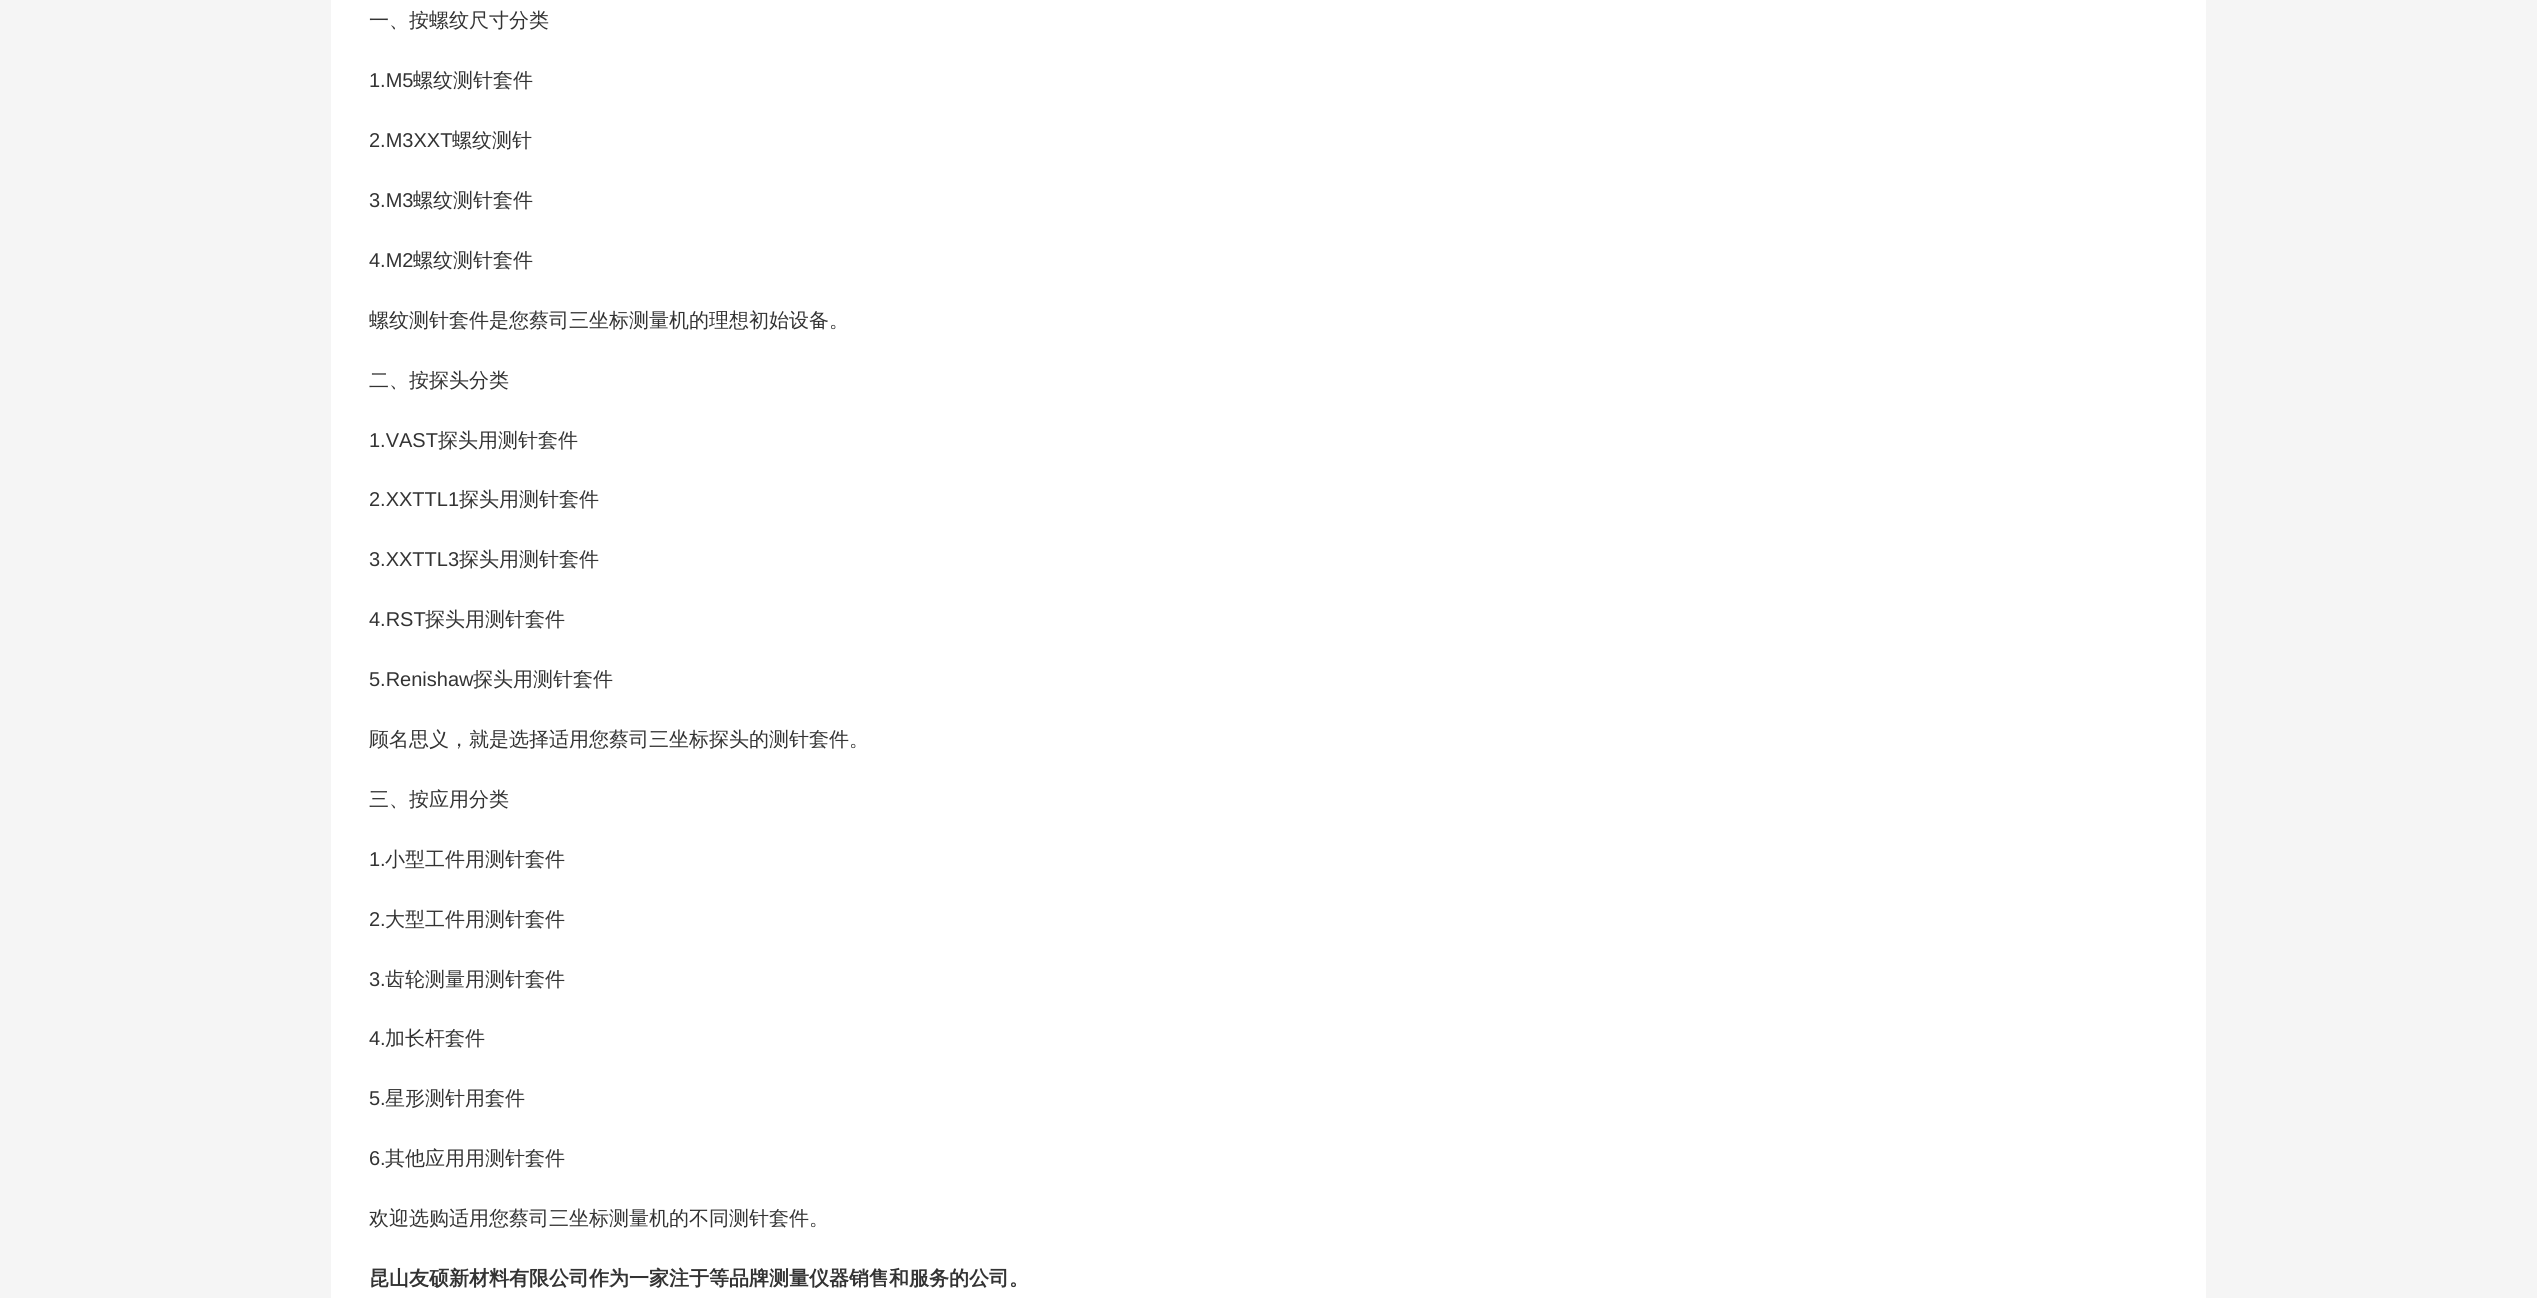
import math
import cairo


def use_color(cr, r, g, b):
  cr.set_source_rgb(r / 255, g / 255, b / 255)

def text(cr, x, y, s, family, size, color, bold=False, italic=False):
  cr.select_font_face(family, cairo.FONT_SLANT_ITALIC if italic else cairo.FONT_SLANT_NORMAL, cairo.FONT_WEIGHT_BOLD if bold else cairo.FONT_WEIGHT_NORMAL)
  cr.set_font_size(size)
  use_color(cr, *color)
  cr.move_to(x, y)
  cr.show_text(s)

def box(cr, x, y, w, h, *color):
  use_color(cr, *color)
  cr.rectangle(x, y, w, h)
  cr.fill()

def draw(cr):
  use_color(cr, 245, 245, 245)
  cr.paint()
  box(cr, 331, 0, 1875, 1298, 255, 255, 255)
  text(cr, 369, 27, "一、按螺纹尺寸分类", "WenQuanYi Zen Hei Medium", 20, (51, 51, 51))
  text(cr, 369, 87, "1.M5", "Liberation Sans", 20, (51, 51, 51))
  text(cr, 413, 87, "螺纹测针套件", "WenQuanYi Zen Hei Medium", 20, (51, 51, 51))
  text(cr, 369, 147, "2.M3XXT", "Liberation Sans", 20, (51, 51, 51))
  text(cr, 452, 147, "螺纹测针", "WenQuanYi Zen Hei Medium", 20, (51, 51, 51))
  text(cr, 369, 207, "3.M3", "Liberation Sans", 20, (51, 51, 51))
  text(cr, 413, 207, "螺纹测针套件", "WenQuanYi Zen Hei Medium", 20, (51, 51, 51))
  text(cr, 369, 267, "4.M2", "Liberation Sans", 20, (51, 51, 51))
  text(cr, 413, 267, "螺纹测针套件", "WenQuanYi Zen Hei Medium", 20, (51, 51, 51))
  text(cr, 369, 327, "螺纹测针套件是您蔡司三坐标测量机的理想初始设备。", "WenQuanYi Zen Hei Medium", 20, (51, 51, 51))
  text(cr, 369, 387, "二、按探头分类", "WenQuanYi Zen Hei Medium", 20, (51, 51, 51))
  text(cr, 369, 447, "1.VAST", "Liberation Sans", 20, (51, 51, 51))
  text(cr, 438, 447, "探头用测针套件", "WenQuanYi Zen Hei Medium", 20, (51, 51, 51))
  text(cr, 369, 506, "2.XXTTL1", "Liberation Sans", 20, (51, 51, 51))
  text(cr, 459, 506, "探头用测针套件", "WenQuanYi Zen Hei Medium", 20, (51, 51, 51))
  text(cr, 369, 566, "3.XXTTL3", "Liberation Sans", 20, (51, 51, 51))
  text(cr, 459, 566, "探头用测针套件", "WenQuanYi Zen Hei Medium", 20, (51, 51, 51))
  text(cr, 369, 626, "4.RST", "Liberation Sans", 20, (51, 51, 51))
  text(cr, 425, 626, "探头用测针套件", "WenQuanYi Zen Hei Medium", 20, (51, 51, 51))
  text(cr, 369, 686, "5.Renishaw", "Liberation Sans", 20, (51, 51, 51))
  text(cr, 473, 686, "探头用测针套件", "WenQuanYi Zen Hei Medium", 20, (51, 51, 51))
  text(cr, 369, 746, "顾名思义，就是选择适用您蔡司三坐标探头的测针套件。", "WenQuanYi Zen Hei Medium", 20, (51, 51, 51))
  text(cr, 369, 806, "三、按应用分类", "WenQuanYi Zen Hei Medium", 20, (51, 51, 51))
  text(cr, 369, 866, "1.", "Liberation Sans", 20, (51, 51, 51))
  text(cr, 385, 866, "小型工件用测针套件", "WenQuanYi Zen Hei Medium", 20, (51, 51, 51))
  text(cr, 369, 926, "2.", "Liberation Sans", 20, (51, 51, 51))
  text(cr, 385, 926, "大型工件用测针套件", "WenQuanYi Zen Hei Medium", 20, (51, 51, 51))
  text(cr, 369, 986, "3.", "Liberation Sans", 20, (51, 51, 51))
  text(cr, 385, 986, "齿轮测量用测针套件", "WenQuanYi Zen Hei Medium", 20, (51, 51, 51))
  text(cr, 369, 1045, "4.", "Liberation Sans", 20, (51, 51, 51))
  text(cr, 385, 1045, "加长杆套件", "WenQuanYi Zen Hei Medium", 20, (51, 51, 51))
  text(cr, 369, 1105, "5.", "Liberation Sans", 20, (51, 51, 51))
  text(cr, 385, 1105, "星形测针用套件", "WenQuanYi Zen Hei Medium", 20, (51, 51, 51))
  text(cr, 369, 1165, "6.", "Liberation Sans", 20, (51, 51, 51))
  text(cr, 385, 1165, "其他应用用测针套件", "WenQuanYi Zen Hei Medium", 20, (51, 51, 51))
  text(cr, 369, 1225, "欢迎选购适用您蔡司三坐标测量机的不同测针套件。", "WenQuanYi Zen Hei Medium", 20, (51, 51, 51))
  text(cr, 369, 1285, "昆山友硕新材料有限公司作为一家注于等品牌测量仪器销售和服务的公司。", "WenQuanYi Zen Hei", 20, (51, 51, 51), bold=True)


surface = cairo.ImageSurface(cairo.FORMAT_RGB24, 2537, 1298)
cr = cairo.Context(surface)
options = cairo.FontOptions()
options.set_hint_metrics(cairo.HINT_METRICS_OFF)
options.set_hint_style(cairo.HINT_STYLE_NONE)
cr.set_font_options(options)
cr.set_miter_limit(4)
draw(cr)
surface.write_to_png("out.png")
